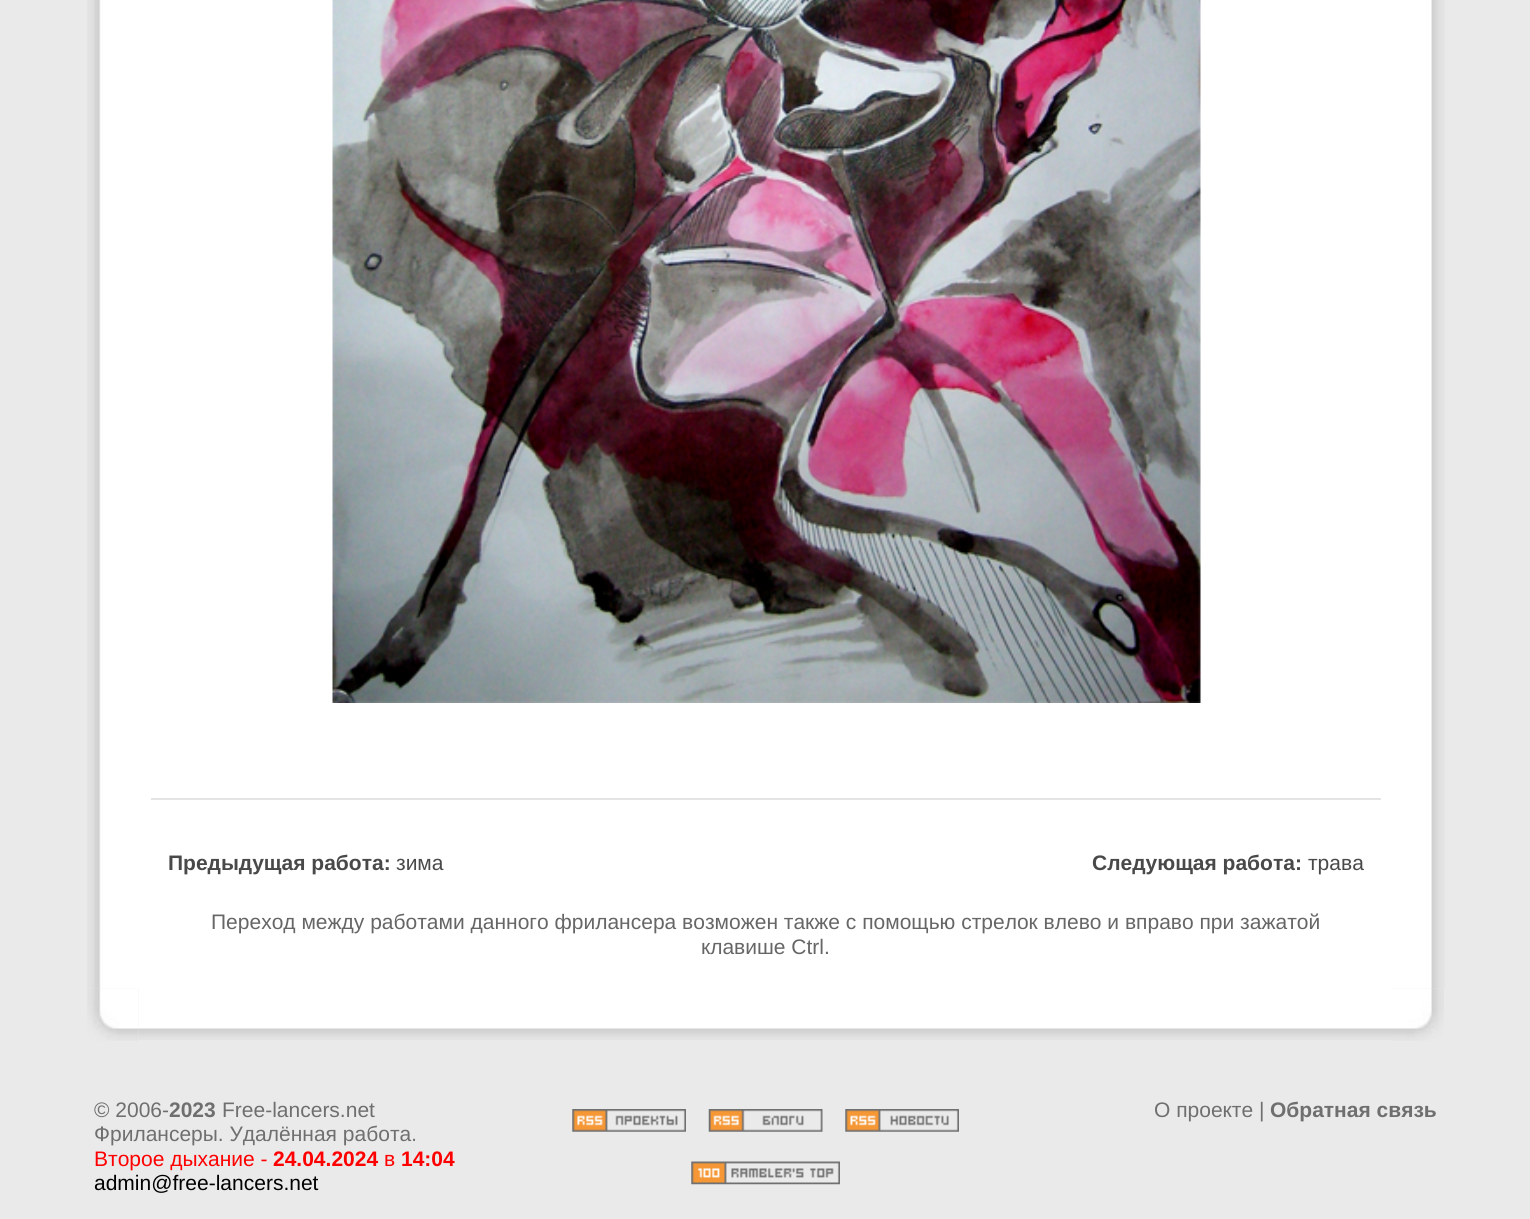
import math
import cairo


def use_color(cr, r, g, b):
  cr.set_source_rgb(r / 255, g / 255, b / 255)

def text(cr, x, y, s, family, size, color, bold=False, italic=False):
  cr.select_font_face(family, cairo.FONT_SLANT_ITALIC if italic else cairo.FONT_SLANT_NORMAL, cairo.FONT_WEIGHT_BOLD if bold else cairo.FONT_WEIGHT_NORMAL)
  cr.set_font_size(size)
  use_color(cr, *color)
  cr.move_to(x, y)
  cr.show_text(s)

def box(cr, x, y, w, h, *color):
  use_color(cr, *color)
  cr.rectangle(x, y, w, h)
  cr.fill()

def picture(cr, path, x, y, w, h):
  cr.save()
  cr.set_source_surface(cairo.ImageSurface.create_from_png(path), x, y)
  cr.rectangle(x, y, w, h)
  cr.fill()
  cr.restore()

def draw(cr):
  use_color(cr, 234, 234, 234)
  cr.paint()
  picture(cr, "img_01.png", 87, 0, 51, 989)
  box(cr, 138, 0, 1255, 989, 255, 255, 255)
  picture(cr, "img_02.png", 332, 0, 869, 703)
  box(cr, 151, 798, 1230, 2, 228, 228, 228)
  picture(cr, "img_03.png", 1393, 0, 52, 989)
  picture(cr, "img_04.png", 87, 988, 51, 53)
  picture(cr, "img_05.png", 138, 989, 1255, 51)
  picture(cr, "img_06.png", 1393, 988, 51, 53)
  picture(cr, "img_07.png", 572, 1109, 114, 23)
  picture(cr, "img_08.png", 708, 1109, 115, 23)
  picture(cr, "img_09.png", 845, 1109, 114, 23)
  picture(cr, "img_10.png", 691, 1161, 149, 24)
  text(cr, 168, 870, "Предыдущая работа:", "Liberation Sans", 21, (73, 73, 73), bold=True)
  text(cr, 396, 870, "зима", "Liberation Sans", 21, (73, 73, 73))
  text(cr, 1092, 870, "Следующая работа:", "Liberation Sans", 21, (73, 73, 73), bold=True)
  text(cr, 1308, 870, "трава", "Liberation Sans", 21, (73, 73, 73))
  text(cr, 211, 929, "Переход между работами данного фрилансера возможен также с помощью стрелок влево и вправо при зажатой", "Liberation Sans", 21, (102, 102, 102))
  text(cr, 701, 954, "клавише Ctrl.", "Liberation Sans", 21, (102, 102, 102))
  text(cr, 94, 1117, "© 2006-", "Liberation Sans", 21, (111, 111, 111))
  text(cr, 169, 1117, "2023", "Liberation Sans", 21, (111, 111, 111), bold=True)
  text(cr, 222, 1117, "Free-lancers.net", "Liberation Sans", 21, (111, 111, 111))
  text(cr, 94, 1141, "Фрилансеры. Удалённая работа.", "Liberation Sans", 21, (111, 111, 111))
  text(cr, 94, 1166, "Второе дыхание -", "Liberation Sans", 21, (255, 0, 0))
  text(cr, 273, 1166, "24.04.2024", "Liberation Sans", 21, (255, 0, 0), bold=True)
  text(cr, 384, 1166, "в", "Liberation Sans", 21, (255, 0, 0))
  text(cr, 401, 1166, "14:04", "Liberation Sans", 21, (255, 0, 0), bold=True)
  text(cr, 94, 1190, "admin@free-lancers.net", "Liberation Sans", 21, (0, 0, 0))
  text(cr, 1154, 1117, "О проекте |", "Liberation Sans", 21, (111, 111, 111))
  text(cr, 1270, 1117, "Обратная связь", "Liberation Sans", 21, (111, 111, 111), bold=True)


surface = cairo.ImageSurface(cairo.FORMAT_RGB24, 1530, 1219)
cr = cairo.Context(surface)
options = cairo.FontOptions()
options.set_hint_metrics(cairo.HINT_METRICS_OFF)
options.set_hint_style(cairo.HINT_STYLE_NONE)
cr.set_font_options(options)
cr.set_miter_limit(4)
draw(cr)
surface.write_to_png("out.png")
